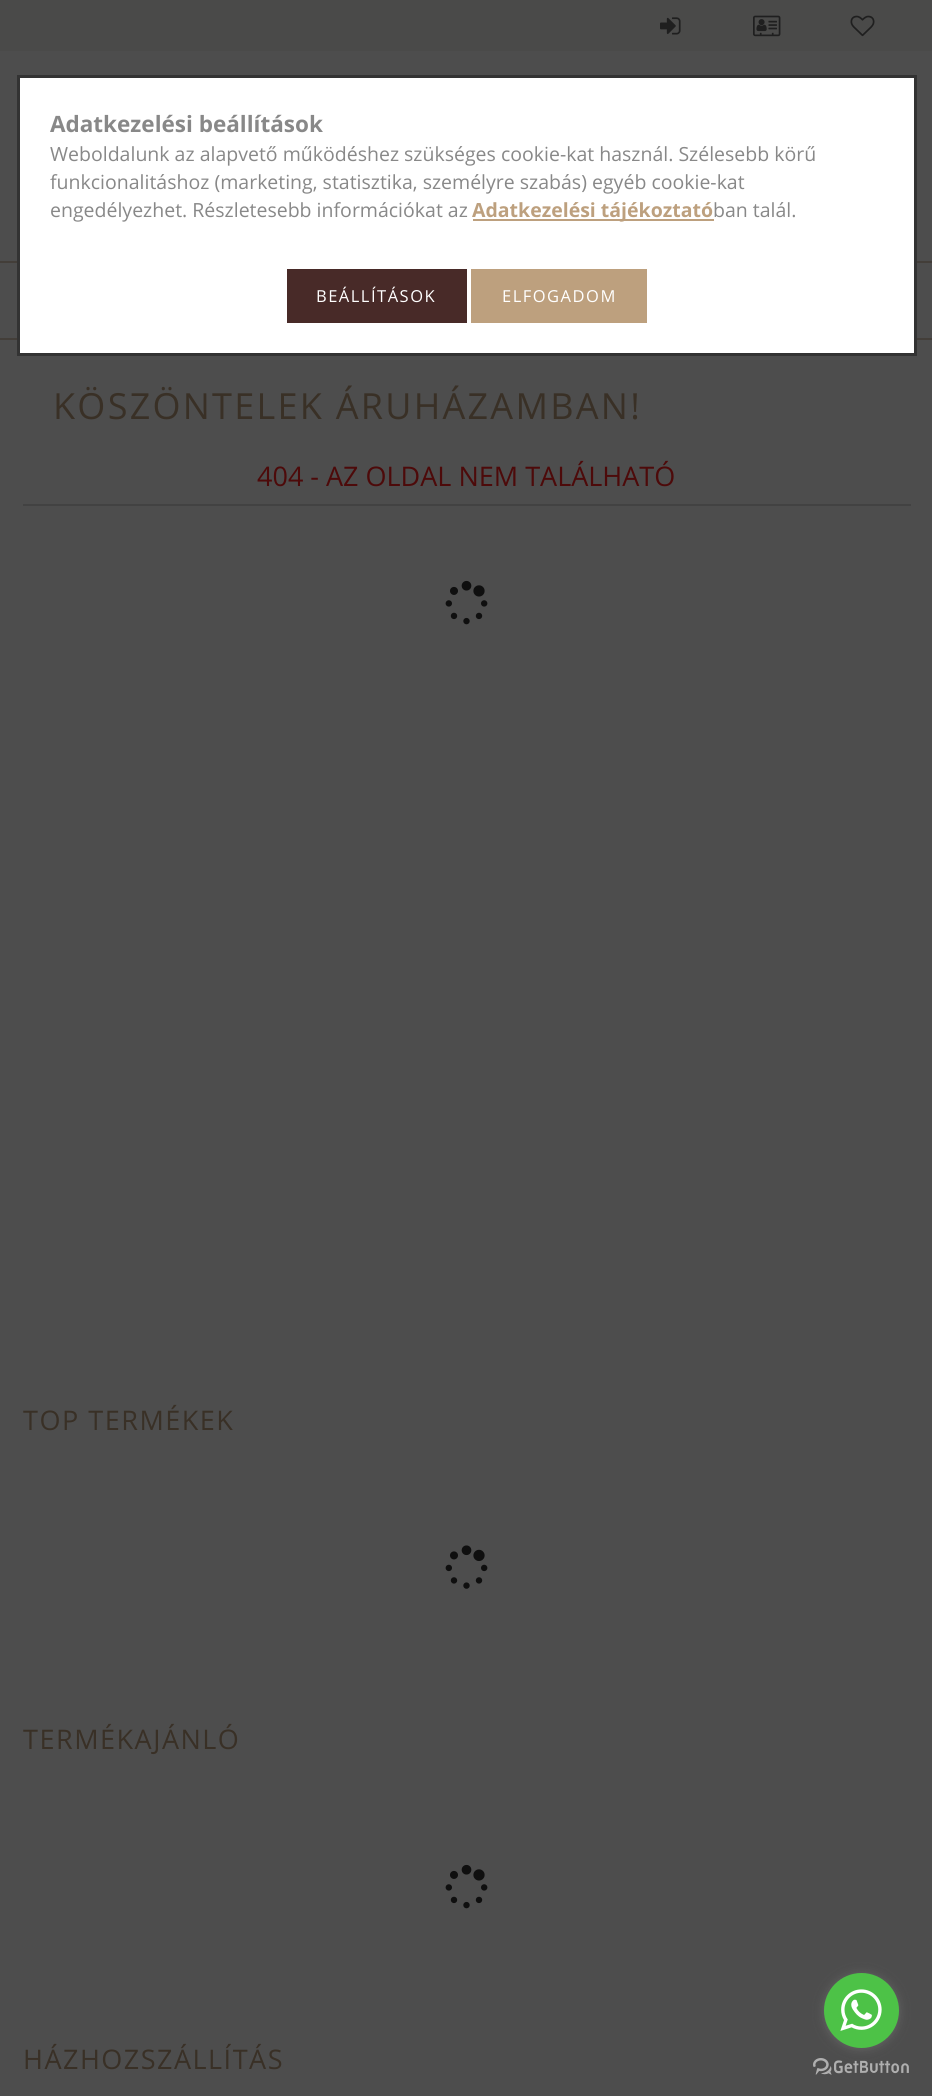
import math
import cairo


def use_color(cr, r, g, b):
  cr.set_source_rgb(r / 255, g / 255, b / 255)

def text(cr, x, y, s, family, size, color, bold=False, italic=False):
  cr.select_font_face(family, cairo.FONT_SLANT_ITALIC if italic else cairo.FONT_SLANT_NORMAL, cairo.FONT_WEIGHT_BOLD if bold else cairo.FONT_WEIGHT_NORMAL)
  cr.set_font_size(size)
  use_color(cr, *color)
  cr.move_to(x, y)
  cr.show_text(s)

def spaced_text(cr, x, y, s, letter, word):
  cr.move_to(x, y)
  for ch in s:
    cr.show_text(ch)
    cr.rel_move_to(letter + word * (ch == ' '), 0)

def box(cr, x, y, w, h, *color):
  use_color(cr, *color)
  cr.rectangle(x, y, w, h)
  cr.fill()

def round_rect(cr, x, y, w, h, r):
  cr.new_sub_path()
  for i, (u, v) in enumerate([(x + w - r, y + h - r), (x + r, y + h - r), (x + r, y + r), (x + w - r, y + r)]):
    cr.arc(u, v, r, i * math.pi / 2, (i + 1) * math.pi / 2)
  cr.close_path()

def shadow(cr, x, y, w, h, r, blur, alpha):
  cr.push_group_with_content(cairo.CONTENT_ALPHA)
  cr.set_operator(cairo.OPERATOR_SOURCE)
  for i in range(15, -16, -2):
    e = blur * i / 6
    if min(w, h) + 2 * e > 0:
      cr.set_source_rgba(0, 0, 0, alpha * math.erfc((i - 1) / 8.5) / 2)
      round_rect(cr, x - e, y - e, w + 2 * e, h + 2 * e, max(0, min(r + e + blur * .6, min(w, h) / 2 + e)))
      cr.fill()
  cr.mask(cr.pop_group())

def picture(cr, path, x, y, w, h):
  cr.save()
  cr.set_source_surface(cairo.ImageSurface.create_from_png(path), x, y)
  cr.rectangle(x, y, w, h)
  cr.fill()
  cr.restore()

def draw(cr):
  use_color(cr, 77, 77, 77)
  cr.paint()
  box(cr, 0, 261, 932, 2, 67, 62, 57)
  box(cr, 0, 338, 932, 2, 67, 62, 57)
  use_color(cr, 255, 255, 255)
  cr.rectangle(18.5, 76.5, 897, 278)
  cr.fill_preserve()
  use_color(cr, 51, 51, 51)
  cr.set_line_width(3)
  cr.stroke()
  box(cr, 473, 219, 241, 2, 189, 160, 126)
  box(cr, 287, 269, 180, 54, 72, 42, 40)
  box(cr, 471, 269, 176, 54, 189, 160, 126)
  box(cr, 0, 0, 932, 51, 74, 74, 73)
  picture(cr, "img_01.png", 660, 17, 21, 18)
  picture(cr, "img_02.png", 753, 15, 28, 22)
  picture(cr, "img_03.png", 850, 15, 25, 22)
  box(cr, 23, 504, 888, 2, 66, 66, 66)
  picture(cr, "img_04.png", 445, 580, 43, 45)
  picture(cr, "img_05.png", 445, 1545, 43, 44)
  picture(cr, "img_04.png", 445, 1864, 43, 45)
  picture(cr, "img_07.png", 813, 2058, 96, 17)
  use_color(cr, 136, 136, 136)
  shadow(cr, 824, 1974, 75, 75, 37.5, 5, 0.4)
  use_color(cr, 77, 194, 71)
  cr.arc(861.5, 2010.5, 37.5, 0, 2 * math.pi)
  cr.fill()
  picture(cr, "img_06.png", 840, 1989, 42, 42)
  text(cr, 50, 132, "Adatkezelési beállítások", "Open Sans", 22.5, (136, 136, 136), bold=True)
  text(cr, 50, 161, "Weboldalunk az alapvető működéshez szükséges cookie-kat használ. Szélesebb körű", "Open Sans", 19.5, (136, 136, 136))
  text(cr, 50, 189, "funkcionalitáshoz (marketing, statisztika, személyre szabás) egyéb cookie-kat", "Open Sans", 19.5, (136, 136, 136))
  text(cr, 50, 217, "engedélyezhet. Részletesebb információkat az", "Open Sans", 19.5, (136, 136, 136))
  text(cr, 472, 217, "Adatkezelési tájékoztató", "Open Sans", 19.5, (189, 160, 126), bold=True)
  text(cr, 713, 217, "ban talál.", "Open Sans", 19.5, (136, 136, 136))
  cr.set_font_size(16.5)
  use_color(cr, 255, 255, 255)
  spaced_text(cr, 316, 302, "BEÁLLÍTÁSOK", 1.5, 0)
  spaced_text(cr, 502, 302, "ELFOGADOM", 1.5, 0)
  cr.set_font_size(36)
  use_color(cr, 57, 48, 38)
  spaced_text(cr, 53, 419, "KÖSZÖNTELEK ÁRUHÁZAMBAN!", 2.25, 0)
  text(cr, 257, 486, "404 - AZ OLDAL NEM TALÁLHATÓ", "Open Sans", 27, (77, 10, 10))
  use_color(cr, 57, 48, 38)
  spaced_text(cr, 23, 1430, "TOP TERMÉKEK", 1.5, 0)
  spaced_text(cr, 23, 1749, "TERMÉKAJÁNLÓ", 1.5, 0)
  spaced_text(cr, 23, 2069, "HÁZHOZSZÁLLÍTÁS", 1.5, 0)


surface = cairo.ImageSurface(cairo.FORMAT_RGB24, 932, 2096)
cr = cairo.Context(surface)
options = cairo.FontOptions()
options.set_hint_metrics(cairo.HINT_METRICS_OFF)
options.set_hint_style(cairo.HINT_STYLE_NONE)
cr.set_font_options(options)
cr.set_miter_limit(4)
draw(cr)
surface.write_to_png("out.png")
